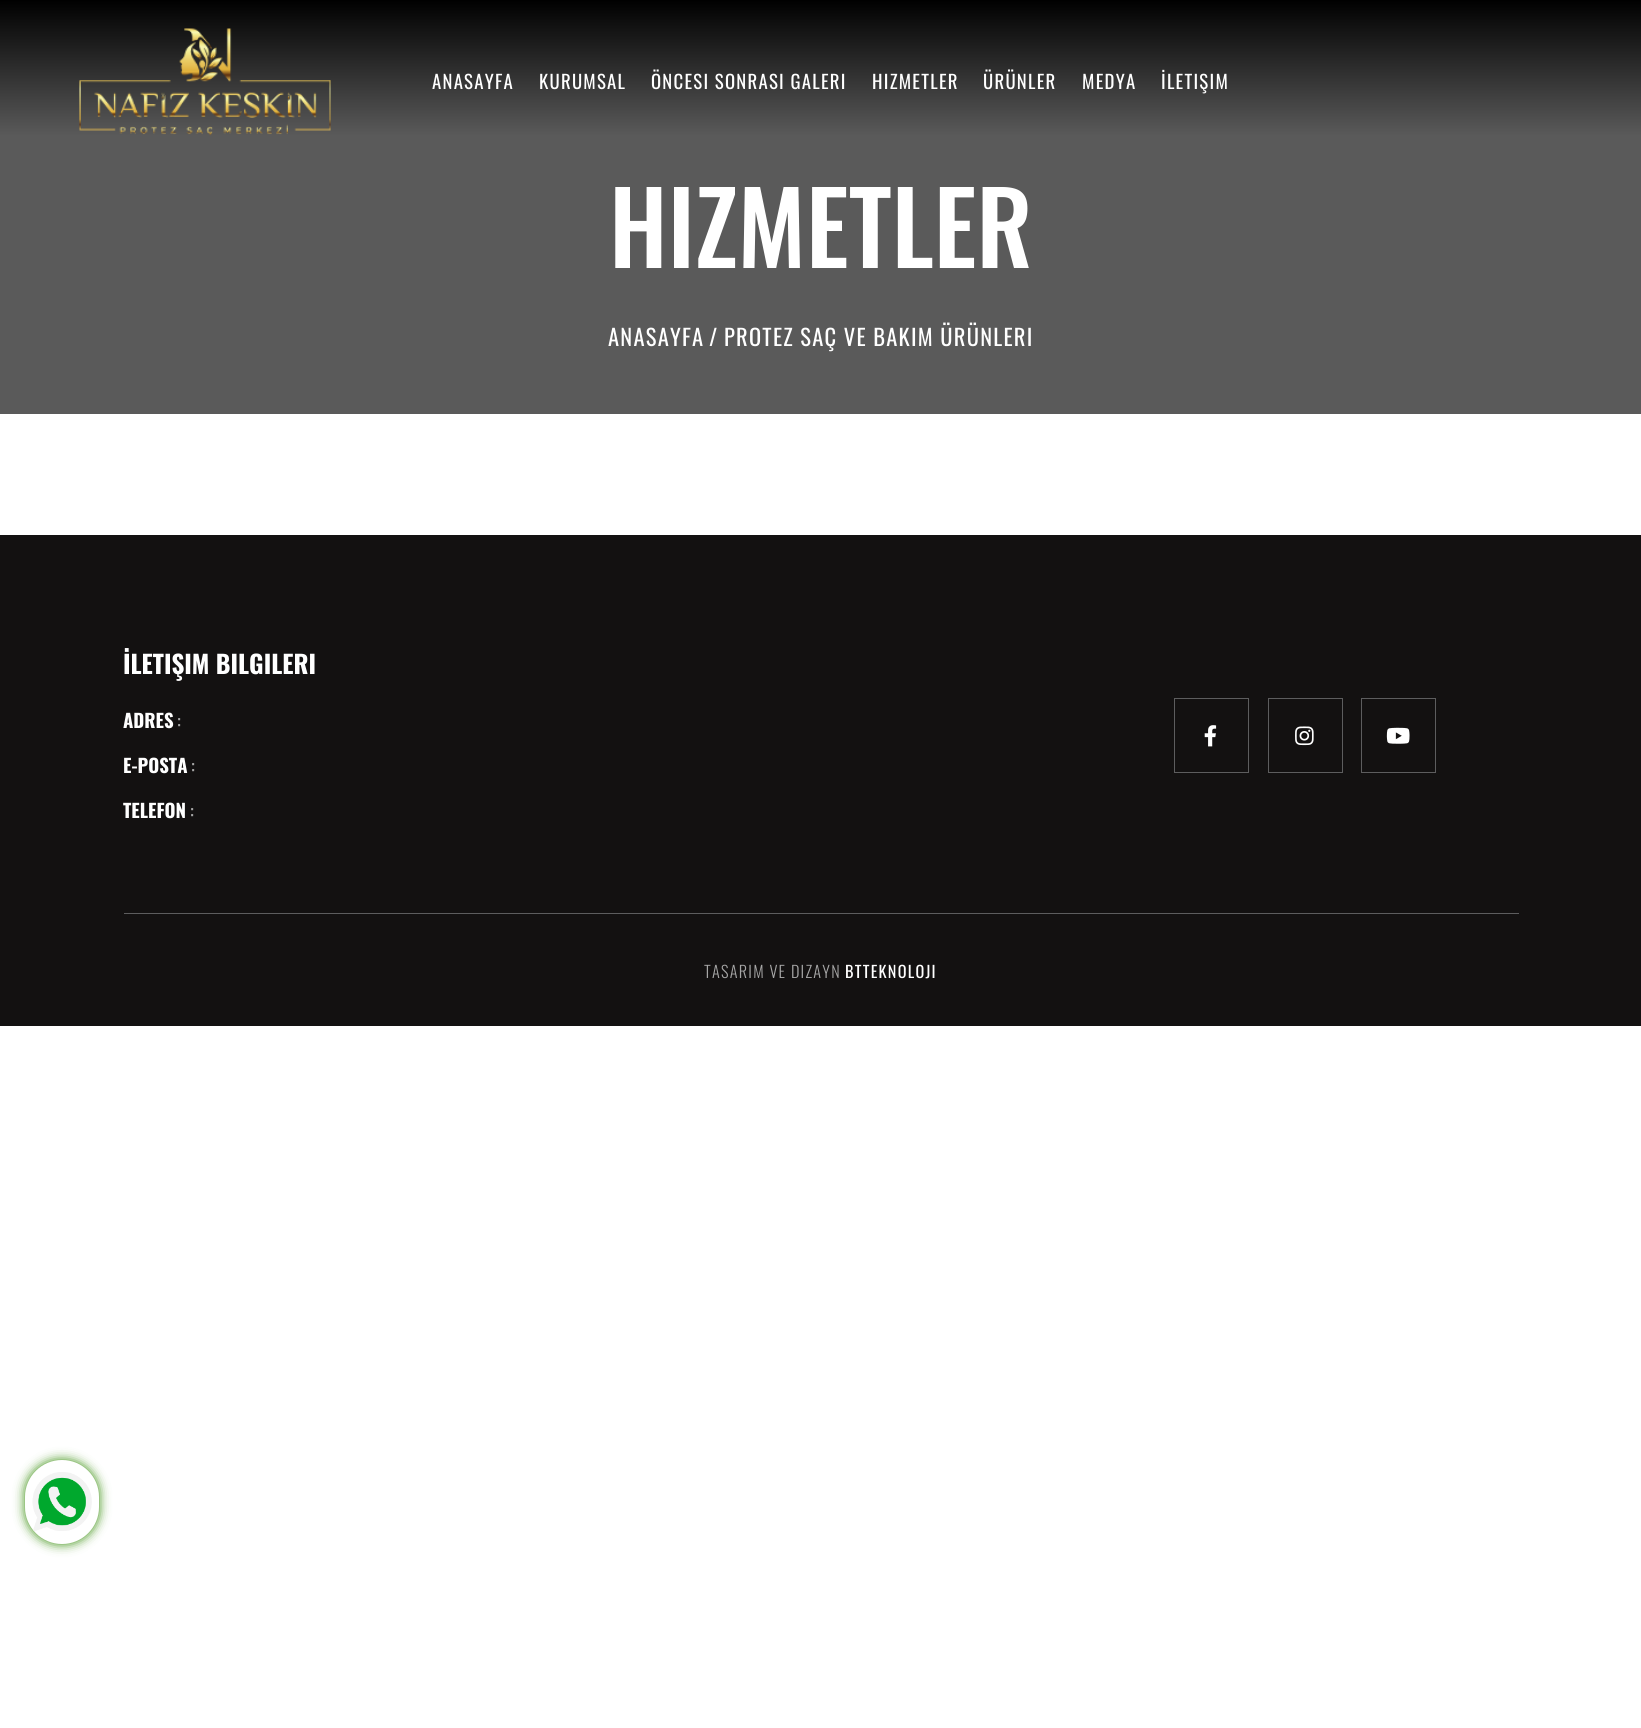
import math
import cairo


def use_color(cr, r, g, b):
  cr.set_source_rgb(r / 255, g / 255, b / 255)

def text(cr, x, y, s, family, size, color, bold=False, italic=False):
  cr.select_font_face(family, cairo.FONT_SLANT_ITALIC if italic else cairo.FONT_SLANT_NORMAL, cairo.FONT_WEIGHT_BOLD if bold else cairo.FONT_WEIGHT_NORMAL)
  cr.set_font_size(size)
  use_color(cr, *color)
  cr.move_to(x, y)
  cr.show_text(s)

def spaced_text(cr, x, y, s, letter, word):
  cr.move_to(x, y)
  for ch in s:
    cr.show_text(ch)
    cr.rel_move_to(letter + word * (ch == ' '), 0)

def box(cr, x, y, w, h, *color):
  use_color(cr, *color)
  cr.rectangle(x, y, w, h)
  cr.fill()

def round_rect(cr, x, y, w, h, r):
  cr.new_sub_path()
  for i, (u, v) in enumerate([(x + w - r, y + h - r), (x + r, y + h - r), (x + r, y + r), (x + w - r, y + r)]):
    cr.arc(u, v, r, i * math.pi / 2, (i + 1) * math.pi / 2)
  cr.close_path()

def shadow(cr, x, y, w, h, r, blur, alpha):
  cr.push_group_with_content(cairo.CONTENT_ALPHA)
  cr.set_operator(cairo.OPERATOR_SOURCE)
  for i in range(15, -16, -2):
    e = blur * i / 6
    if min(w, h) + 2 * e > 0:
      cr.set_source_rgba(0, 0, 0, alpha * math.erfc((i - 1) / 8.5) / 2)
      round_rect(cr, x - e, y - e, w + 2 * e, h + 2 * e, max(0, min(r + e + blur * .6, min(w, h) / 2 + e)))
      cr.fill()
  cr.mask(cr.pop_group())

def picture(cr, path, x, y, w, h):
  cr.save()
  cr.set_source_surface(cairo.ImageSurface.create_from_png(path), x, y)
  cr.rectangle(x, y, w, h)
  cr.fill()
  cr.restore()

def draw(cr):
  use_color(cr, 255, 255, 255)
  cr.paint()
  gradient = cairo.LinearGradient(821, 0, 821, 136)
  gradient.add_color_stop_rgba(0, 0, 0, 0, 1)
  gradient.add_color_stop_rgba(1, 0.353, 0.353, 0.353, 1)
  cr.set_source(gradient)
  cr.rectangle(0, 0, 1641, 136)
  cr.fill()
  picture(cr, "img_01.png", 79, 28, 252, 108)
  box(cr, 0, 136, 1641, 278, 90, 90, 90)
  box(cr, 0, 535, 1641, 491, 19, 17, 17)
  cr.rectangle(1174.5, 698.5, 74, 74)
  use_color(cr, 93, 93, 94)
  cr.set_line_width(1)
  cr.stroke()
  picture(cr, "img_02.png", 1204, 725, 13, 22)
  cr.rectangle(1268.5, 698.5, 74, 74)
  cr.stroke()
  picture(cr, "img_03.png", 1295, 726, 19, 20)
  cr.rectangle(1361.5, 698.5, 74, 74)
  cr.stroke()
  picture(cr, "img_04.png", 1386, 727, 24, 17)
  box(cr, 124, 913, 1395, 1, 93, 93, 94)
  use_color(cr, 50, 138, 5)
  shadow(cr, 25, 1460, 74, 84, 37, 5.5, 1)
  use_color(cr, 255, 255, 255)
  round_rect(cr, 25, 1460, 74, 84, 37)
  cr.fill()
  picture(cr, "img_05.png", 32, 1472, 60, 59)
  cr.select_font_face("Oswald")
  cr.set_font_size(18.75)
  spaced_text(cr, 432, 89, "ANASAYFA", 1.25, 0)
  spaced_text(cr, 539, 89, "KURUMSAL", 1.25, 0)
  spaced_text(cr, 651, 89, "ÖNCESI SONRASI GALERI", 1.25, 0)
  spaced_text(cr, 872, 89, "HIZMETLER", 1.25, 0)
  spaced_text(cr, 983, 89, "ÜRÜNLER", 1.25, 0)
  spaced_text(cr, 1082, 89, "MEDYA", 1.25, 0)
  spaced_text(cr, 1161, 89, "İLETIŞIM", 1.25, 0)
  text(cr, 609, 268, "HIZMETLER", "Oswald Medium", 100, (255, 255, 255))
  cr.select_font_face("Oswald")
  cr.set_font_size(22.5)
  spaced_text(cr, 608, 346, "ANASAYFA", 1.25, 0)
  spaced_text(cr, 709, 346, "/", 1.25, 0)
  spaced_text(cr, 724, 346, "PROTEZ SAÇ VE BAKIM ÜRÜNLERI", 1.25, 0)
  text(cr, 123, 674, "İLETIŞIM BILGILERI", "Oswald", 25, (255, 255, 255), bold=True)
  text(cr, 123, 728, "ADRES", "Oswald", 18.75, (255, 255, 255), bold=True)
  text(cr, 177, 728, ":", "Oswald", 18.75, (167, 167, 167))
  text(cr, 123, 773, "E-POSTA", "Oswald", 18.75, (255, 255, 255), bold=True)
  text(cr, 191, 773, ":", "Oswald", 18.75, (167, 167, 167))
  text(cr, 123, 818, "TELEFON", "Oswald", 18.75, (255, 255, 255), bold=True)
  text(cr, 190, 818, ":", "Oswald", 18.75, (167, 167, 167))
  cr.select_font_face("Oswald Light")
  cr.set_font_size(16.25)
  spaced_text(cr, 704, 978, "TASARIM VE DIZAYN", 1.25, 0)
  cr.select_font_face("Oswald")
  use_color(cr, 255, 255, 255)
  spaced_text(cr, 845, 978, "BTTEKNOLOJI", 1.25, 0)


surface = cairo.ImageSurface(cairo.FORMAT_RGB24, 1641, 1728)
cr = cairo.Context(surface)
options = cairo.FontOptions()
options.set_hint_metrics(cairo.HINT_METRICS_OFF)
options.set_hint_style(cairo.HINT_STYLE_NONE)
cr.set_font_options(options)
cr.set_miter_limit(4)
draw(cr)
surface.write_to_png("out.png")
